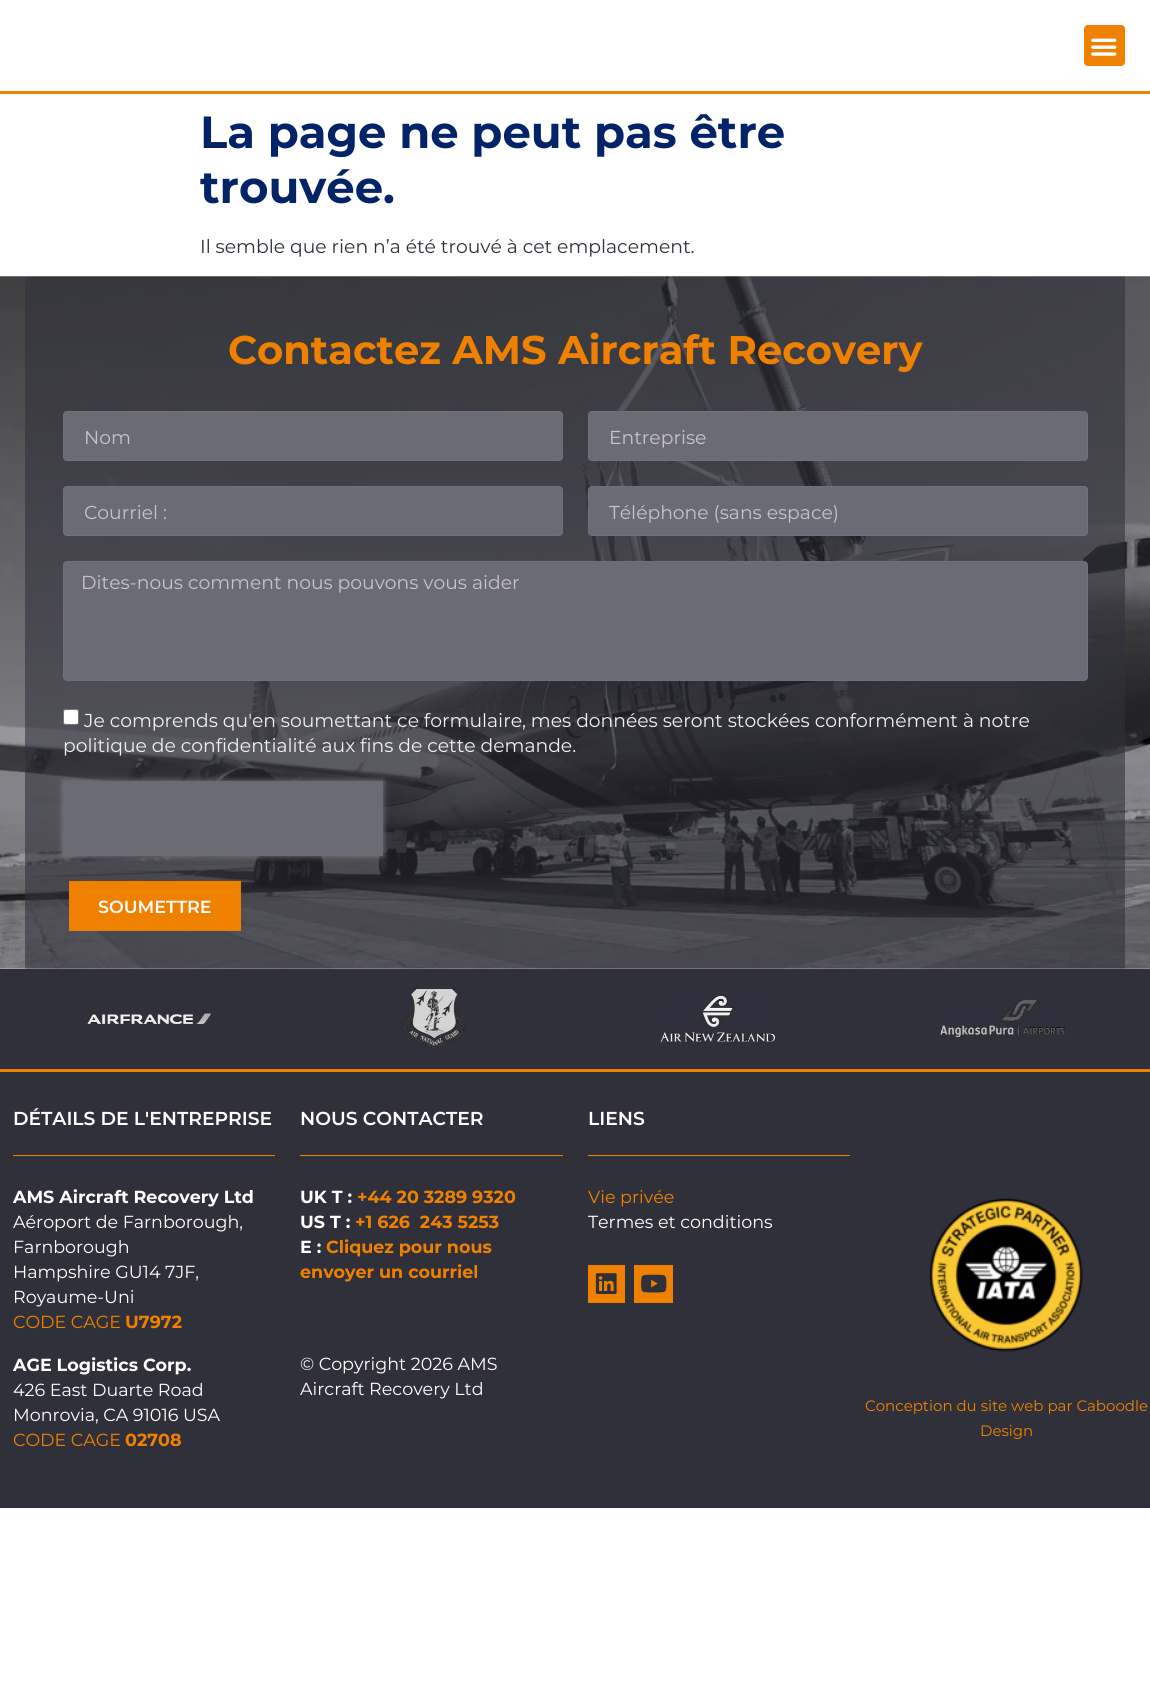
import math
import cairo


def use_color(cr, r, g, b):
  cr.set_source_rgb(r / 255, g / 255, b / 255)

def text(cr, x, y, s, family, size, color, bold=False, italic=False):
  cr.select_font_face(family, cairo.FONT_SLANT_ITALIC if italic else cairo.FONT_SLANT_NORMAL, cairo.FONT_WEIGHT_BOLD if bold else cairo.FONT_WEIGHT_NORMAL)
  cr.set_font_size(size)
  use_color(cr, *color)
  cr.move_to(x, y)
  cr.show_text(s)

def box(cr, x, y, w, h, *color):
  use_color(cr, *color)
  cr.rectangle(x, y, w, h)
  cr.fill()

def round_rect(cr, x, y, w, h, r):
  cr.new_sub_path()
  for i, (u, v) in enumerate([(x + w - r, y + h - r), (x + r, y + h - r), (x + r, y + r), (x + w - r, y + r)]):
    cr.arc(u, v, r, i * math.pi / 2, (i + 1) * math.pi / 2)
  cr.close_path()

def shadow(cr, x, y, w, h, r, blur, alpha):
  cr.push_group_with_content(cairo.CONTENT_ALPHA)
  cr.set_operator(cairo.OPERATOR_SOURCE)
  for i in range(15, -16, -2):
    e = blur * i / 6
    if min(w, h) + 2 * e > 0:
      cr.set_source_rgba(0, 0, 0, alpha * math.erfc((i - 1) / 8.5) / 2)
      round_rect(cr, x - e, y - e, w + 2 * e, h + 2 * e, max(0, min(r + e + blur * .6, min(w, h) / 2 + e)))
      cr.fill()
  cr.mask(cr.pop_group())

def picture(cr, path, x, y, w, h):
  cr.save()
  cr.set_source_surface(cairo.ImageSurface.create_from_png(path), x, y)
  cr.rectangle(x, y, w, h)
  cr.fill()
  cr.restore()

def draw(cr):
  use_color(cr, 255, 255, 255)
  cr.paint()
  box(cr, 0, 91, 1150, 3, 240, 129, 0)
  round_rect(cr, 1084, 25, 41, 41, 4)
  cr.fill()
  picture(cr, "img_01.png", 1091, 38, 26, 18)
  picture(cr, "img_02.png", 0, 276, 1150, 693)
  use_color(cr, 107, 107, 118)
  round_rect(cr, 63.5, 411.5, 499, 49, 3.5)
  cr.fill_preserve()
  use_color(cr, 105, 114, 125)
  cr.set_line_width(1)
  cr.stroke()
  use_color(cr, 107, 107, 118)
  round_rect(cr, 588.5, 411.5, 499, 49, 3.5)
  cr.fill_preserve()
  use_color(cr, 105, 114, 125)
  cr.stroke()
  use_color(cr, 107, 107, 118)
  round_rect(cr, 63.5, 486.5, 499, 49, 3.5)
  cr.fill_preserve()
  use_color(cr, 105, 114, 125)
  cr.stroke()
  use_color(cr, 107, 107, 118)
  round_rect(cr, 588.5, 486.5, 499, 49, 3.5)
  cr.fill_preserve()
  use_color(cr, 105, 114, 125)
  cr.stroke()
  use_color(cr, 107, 107, 118)
  round_rect(cr, 63.5, 561.5, 1024, 119, 3.5)
  cr.fill_preserve()
  use_color(cr, 105, 114, 125)
  cr.stroke()
  use_color(cr, 255, 255, 255)
  round_rect(cr, 63.5, 709.5, 15, 15, 2)
  cr.fill_preserve()
  use_color(cr, 118, 118, 118)
  cr.stroke()
  box(cr, 63, 781, 320, 75, 107, 107, 118)
  cr.save()
  cr.set_fill_rule(cairo.FILL_RULE_EVEN_ODD)
  cr.new_path()
  cr.move_to(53, 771)
  cr.line_to(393, 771)
  cr.line_to(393, 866)
  cr.line_to(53, 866)
  cr.close_path()
  cr.move_to(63, 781)
  cr.line_to(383, 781)
  cr.line_to(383, 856)
  cr.line_to(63, 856)
  cr.close_path()
  cr.clip()
  use_color(cr, 128, 128, 128)
  shadow(cr, 63, 781, 320, 75, 0, 3, 1)
  cr.restore()
  box(cr, 69, 881, 172, 50, 240, 129, 0)
  box(cr, 0, 969, 1150, 100, 48, 48, 58)
  picture(cr, "img_03.png", 87, 1013, 125, 11)
  picture(cr, "img_04.png", 402, 987, 64, 63)
  picture(cr, "img_05.png", 660, 996, 116, 48)
  picture(cr, "img_06.png", 939, 999, 126, 39)
  box(cr, 0, 1072, 1150, 436, 48, 48, 58)
  box(cr, 0, 1069, 1150, 3, 240, 129, 0)
  box(cr, 13, 1155, 262, 1, 240, 129, 0)
  box(cr, 300, 1155, 263, 1, 240, 129, 0)
  box(cr, 588, 1155, 262, 1, 240, 129, 0)
  box(cr, 588, 1265, 37, 38, 240, 129, 0)
  picture(cr, "img_07.png", 595, 1273, 22, 21)
  box(cr, 634, 1265, 39, 38, 240, 129, 0)
  picture(cr, "img_08.png", 641, 1274, 26, 19)
  picture(cr, "img_09.png", 929, 1198, 154, 154)
  text(cr, 200, 148, "La page ne peut pas être", "Montserrat", 45, (3, 35, 104), bold=True)
  text(cr, 200, 203, "trouvée.", "Montserrat", 45, (3, 35, 104), bold=True)
  text(cr, 200, 253, "Il semble que rien n’a été trouvé à cet emplacement.", "Montserrat", 18.75, (48, 48, 58))
  text(cr, 228, 364, "Contactez AMS Aircraft Recovery", "Montserrat", 40, (240, 129, 0), bold=True)
  text(cr, 84, 444, "Nom", "Montserrat", 18.75, (196, 196, 200))
  text(cr, 609, 444, "Entreprise", "Montserrat", 18.75, (196, 196, 200))
  text(cr, 84, 519, "Courriel :", "Montserrat", 18.75, (196, 196, 200))
  text(cr, 609, 519, "Téléphone (sans espace)", "Montserrat", 18.75, (196, 196, 200))
  text(cr, 81, 589, "Dites-nous comment nous pouvons vous aider", "Montserrat", 18.75, (196, 196, 200))
  text(cr, 84, 727, "Je comprends qu'en soumettant ce formulaire, mes données seront stockées conformément à notre", "Montserrat", 18.75, (239, 240, 240))
  text(cr, 63, 752, "politique de confidentialité aux fins de cette demande.", "Montserrat", 18.75, (239, 240, 240))
  text(cr, 98, 913, "SOUMETTRE", "Montserrat SemiBold", 17.5, (255, 255, 255))
  text(cr, 13, 1125, "DÉTAILS DE L'ENTREPRISE", "Montserrat SemiBold", 18.75, (255, 255, 255))
  text(cr, 13, 1203, "AMS Aircraft Recovery Ltd", "Montserrat", 17.5, (255, 255, 255), bold=True)
  text(cr, 13, 1228, "Aéroport de Farnborough,", "Montserrat", 17.5, (255, 255, 255))
  text(cr, 13, 1253, "Farnborough", "Montserrat", 17.5, (255, 255, 255))
  text(cr, 13, 1278, "Hampshire GU14 7JF,", "Montserrat", 17.5, (255, 255, 255))
  text(cr, 13, 1303, "Royaume-Uni", "Montserrat", 17.5, (255, 255, 255))
  text(cr, 13, 1328, "CODE CAGE", "Montserrat", 17.5, (240, 129, 0))
  text(cr, 125, 1328, "U7972", "Montserrat", 17.5, (240, 129, 0), bold=True)
  text(cr, 13, 1371, "AGE Logistics Corp.", "Montserrat", 17.5, (255, 255, 255), bold=True)
  text(cr, 13, 1396, "426 East Duarte Road", "Montserrat", 17.5, (255, 255, 255))
  text(cr, 13, 1421, "Monrovia, CA 91016 USA", "Montserrat", 17.5, (255, 255, 255))
  text(cr, 13, 1446, "CODE CAGE", "Montserrat", 17.5, (240, 129, 0))
  text(cr, 125, 1446, "02708", "Montserrat", 17.5, (240, 129, 0), bold=True)
  text(cr, 300, 1125, "NOUS CONTACTER", "Montserrat SemiBold", 18.75, (255, 255, 255))
  text(cr, 300, 1203, "UK T :", "Montserrat", 17.5, (255, 255, 255), bold=True)
  text(cr, 357, 1203, "+44 20 3289 9320", "Montserrat", 17.5, (240, 129, 0), bold=True)
  text(cr, 300, 1228, "US T :", "Montserrat", 17.5, (255, 255, 255), bold=True)
  text(cr, 355, 1228, "+1 626  243 5253", "Montserrat", 17.5, (240, 129, 0), bold=True)
  text(cr, 300, 1253, "E :", "Montserrat", 17.5, (255, 255, 255), bold=True)
  text(cr, 326, 1253, "Cliquez pour nous", "Montserrat", 17.5, (240, 129, 0), bold=True)
  text(cr, 300, 1278, "envoyer un courriel", "Montserrat", 17.5, (240, 129, 0), bold=True)
  text(cr, 300, 1370, "© Copyright 2026 AMS", "Montserrat", 17.5, (255, 255, 255))
  text(cr, 300, 1395, "Aircraft Recovery Ltd", "Montserrat", 17.5, (255, 255, 255))
  text(cr, 588, 1125, "LIENS", "Montserrat SemiBold", 18.75, (255, 255, 255))
  text(cr, 588, 1203, "Vie privée", "Montserrat", 17.5, (240, 129, 0))
  text(cr, 588, 1228, "Termes et conditions", "Montserrat", 17.5, (255, 255, 255))
  text(cr, 865, 1411, "Conception du site web par Caboodle", "Montserrat", 15, (240, 129, 0))
  text(cr, 980, 1436, "Design", "Montserrat", 15, (240, 129, 0))


surface = cairo.ImageSurface(cairo.FORMAT_RGB24, 1150, 1704)
cr = cairo.Context(surface)
options = cairo.FontOptions()
options.set_hint_metrics(cairo.HINT_METRICS_OFF)
options.set_hint_style(cairo.HINT_STYLE_NONE)
cr.set_font_options(options)
cr.set_miter_limit(4)
draw(cr)
surface.write_to_png("out.png")
